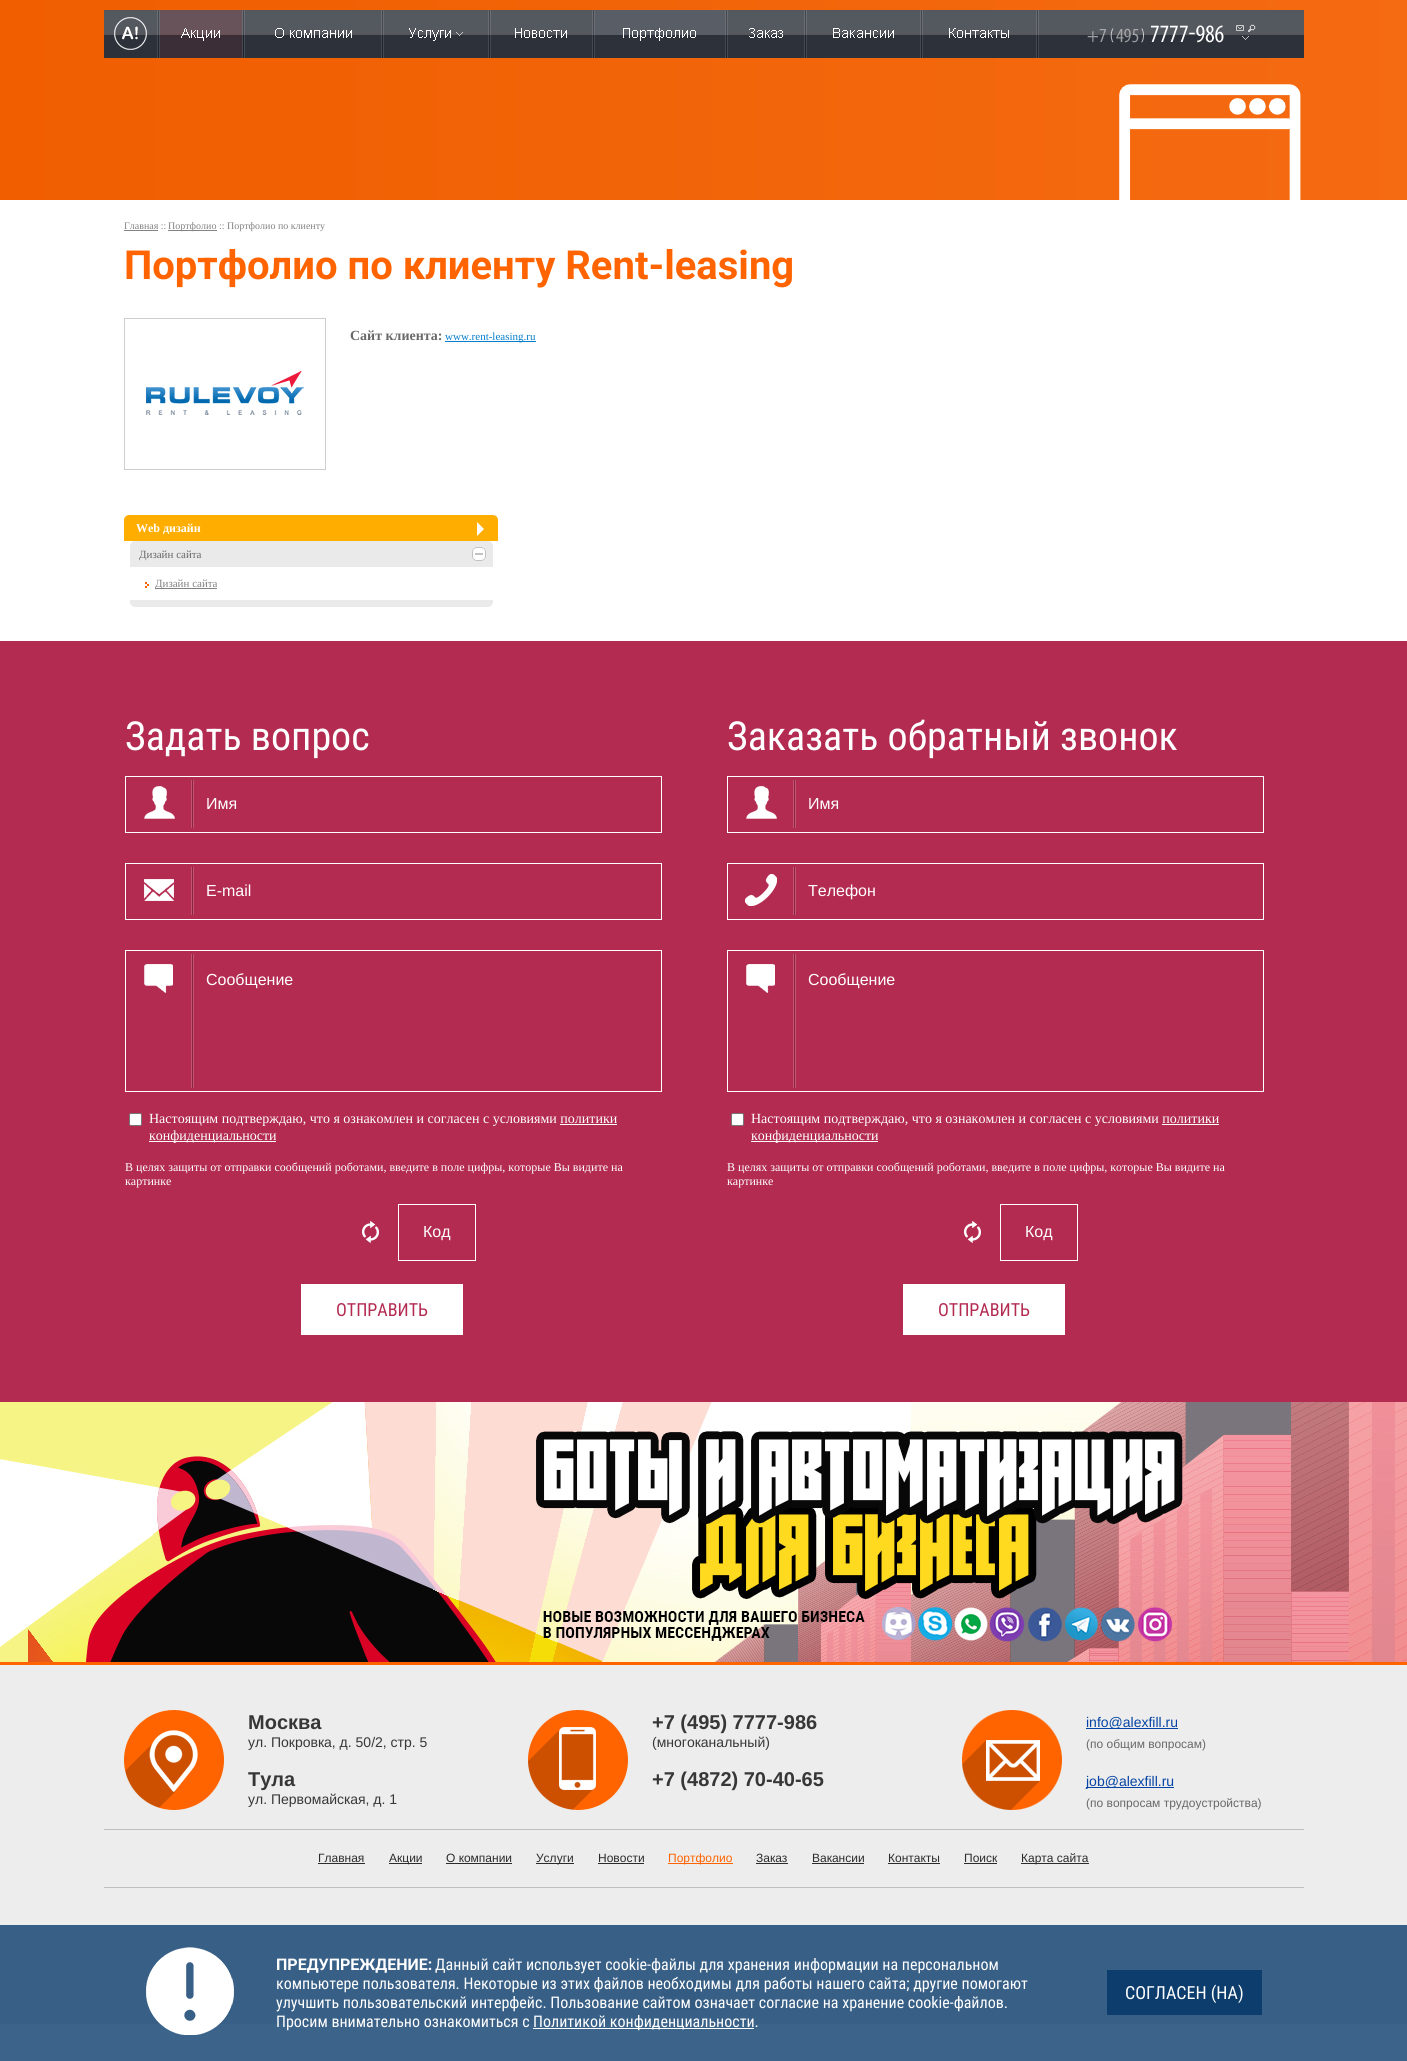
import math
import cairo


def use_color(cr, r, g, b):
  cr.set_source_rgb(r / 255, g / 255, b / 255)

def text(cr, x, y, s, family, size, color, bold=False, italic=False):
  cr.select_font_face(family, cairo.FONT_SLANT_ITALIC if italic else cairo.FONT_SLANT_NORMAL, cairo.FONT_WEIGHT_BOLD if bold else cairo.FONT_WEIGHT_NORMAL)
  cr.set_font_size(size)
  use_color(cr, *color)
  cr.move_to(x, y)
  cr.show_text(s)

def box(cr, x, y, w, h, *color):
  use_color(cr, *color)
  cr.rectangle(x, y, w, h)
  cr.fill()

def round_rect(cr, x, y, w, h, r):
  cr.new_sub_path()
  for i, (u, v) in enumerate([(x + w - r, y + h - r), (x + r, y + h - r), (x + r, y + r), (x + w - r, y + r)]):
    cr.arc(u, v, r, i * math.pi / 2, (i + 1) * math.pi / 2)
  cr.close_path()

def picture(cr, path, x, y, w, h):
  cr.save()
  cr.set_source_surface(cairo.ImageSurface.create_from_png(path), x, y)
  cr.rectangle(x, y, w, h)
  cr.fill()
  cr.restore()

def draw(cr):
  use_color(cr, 255, 255, 255)
  cr.paint()
  gradient = cairo.LinearGradient(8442, 600, 0, 600)
  gradient.add_color_stop_rgba(0, 1, 0.392, 0, 1)
  gradient.add_color_stop_rgba(0.5, 1, 0.518, 0.208, 1)
  gradient.add_color_stop_rgba(1, 0.941, 0.369, 0, 1)
  cr.set_source(gradient)
  cr.rectangle(0, 0, 1407, 200)
  cr.fill()
  picture(cr, "img_01.png", 1119, 84, 182, 116)
  picture(cr, "img_02.png", 104, 10, 1200, 48)
  picture(cr, "img_03.png", 114, 17, 33, 33)
  picture(cr, "img_04.png", 157, 10, 3, 48)
  picture(cr, "img_05.png", 160, 10, 82, 48)
  picture(cr, "img_06.png", 181, 28, 39, 13)
  picture(cr, "img_04.png", 242, 10, 3, 48)
  picture(cr, "img_07.png", 275, 28, 77, 10)
  picture(cr, "img_04.png", 381, 10, 3, 48)
  picture(cr, "img_08.png", 409, 28, 54, 13)
  picture(cr, "img_04.png", 488, 10, 3, 48)
  picture(cr, "img_09.png", 515, 28, 52, 10)
  picture(cr, "img_04.png", 592, 10, 3, 48)
  box(cr, 595, 10, 130, 25, 89, 93, 101)
  picture(cr, "img_10.png", 623, 28, 73, 13)
  picture(cr, "img_04.png", 725, 10, 3, 48)
  picture(cr, "img_11.png", 749, 28, 34, 10)
  picture(cr, "img_04.png", 804, 10, 3, 48)
  picture(cr, "img_12.png", 833, 28, 61, 10)
  picture(cr, "img_04.png", 920, 10, 3, 48)
  picture(cr, "img_13.png", 949, 28, 60, 10)
  picture(cr, "img_04.png", 1036, 10, 3, 48)
  picture(cr, "img_14.png", 1087, 24, 169, 19)
  box(cr, 124, 230, 34, 1, 131, 131, 131)
  box(cr, 168, 230, 49, 1, 131, 131, 131)
  cr.rectangle(124.5, 318.5, 201, 151)
  use_color(cr, 206, 206, 206)
  cr.set_line_width(1)
  cr.stroke()
  picture(cr, "img_15.png", 144, 369, 160, 46)
  box(cr, 445, 341, 91, 1, 4, 126, 205)
  box(cr, 124, 515, 374, 26, 255, 174, 0)
  picture(cr, "img_16.png", 124, 515, 374, 21)
  picture(cr, "img_17.png", 130, 541, 363, 26)
  picture(cr, "img_18.png", 145, 582, 4, 6)
  box(cr, 155, 588, 62, 1, 129, 129, 129)
  picture(cr, "img_19.png", 130, 600, 363, 7)
  box(cr, 0, 641, 1407, 761, 179, 43, 81)
  picture(cr, "img_20.png", 144, 780, 50, 48)
  cr.rectangle(125.5, 776.5, 536, 56)
  use_color(cr, 255, 255, 255)
  cr.stroke()
  picture(cr, "img_21.png", 144, 867, 50, 48)
  cr.rectangle(125.5, 863.5, 536, 56)
  cr.stroke()
  picture(cr, "img_22.png", 144, 954, 50, 134)
  cr.rectangle(125.5, 950.5, 536, 141)
  cr.stroke()
  round_rect(cr, 129.5, 1113.5, 12, 12, 1.5)
  cr.fill_preserve()
  use_color(cr, 118, 118, 118)
  cr.stroke()
  box(cr, 560, 1124, 57, 1, 255, 255, 255)
  box(cr, 149, 1141, 127, 1, 255, 255, 255)
  picture(cr, "img_23.png", 362, 1221, 17, 22)
  cr.rectangle(398.5, 1204.5, 77, 56)
  cr.stroke()
  box(cr, 301, 1284, 162, 51, 255, 255, 255)
  picture(cr, "img_20.png", 746, 780, 50, 48)
  cr.rectangle(727.5, 776.5, 536, 56)
  cr.stroke()
  picture(cr, "img_24.png", 745, 867, 51, 48)
  cr.rectangle(727.5, 863.5, 536, 56)
  cr.stroke()
  picture(cr, "img_22.png", 746, 954, 50, 134)
  cr.rectangle(727.5, 950.5, 536, 141)
  cr.stroke()
  round_rect(cr, 731.5, 1113.5, 12, 12, 1.5)
  cr.fill_preserve()
  use_color(cr, 118, 118, 118)
  cr.stroke()
  box(cr, 1162, 1124, 57, 1, 255, 255, 255)
  box(cr, 751, 1141, 127, 1, 255, 255, 255)
  picture(cr, "img_23.png", 964, 1221, 17, 22)
  cr.rectangle(1000.5, 1204.5, 77, 56)
  cr.stroke()
  box(cr, 903, 1284, 162, 51, 255, 255, 255)
  picture(cr, "img_25.png", 0, 1402, 1407, 260)
  box(cr, 0, 1665, 1407, 359, 237, 237, 237)
  box(cr, 0, 1662, 1407, 3, 255, 100, 0)
  box(cr, 124, 1710, 100, 100, 255, 100, 0)
  picture(cr, "img_26.png", 124, 1710, 100, 100)
  box(cr, 528, 1710, 100, 100, 255, 100, 0)
  picture(cr, "img_27.png", 528, 1710, 100, 100)
  box(cr, 962, 1710, 100, 100, 255, 100, 0)
  picture(cr, "img_28.png", 962, 1710, 100, 100)
  box(cr, 1086, 1728, 92, 1, 4, 68, 164)
  box(cr, 1086, 1787, 88, 1, 4, 68, 164)
  box(cr, 104, 1829, 1200, 1, 190, 190, 190)
  box(cr, 318, 1863, 47, 1, 44, 44, 44)
  box(cr, 389, 1863, 33, 1, 44, 44, 44)
  box(cr, 446, 1863, 66, 1, 44, 44, 44)
  box(cr, 536, 1863, 38, 1, 44, 44, 44)
  box(cr, 598, 1863, 46, 1, 44, 44, 44)
  box(cr, 668, 1863, 65, 1, 255, 100, 0)
  box(cr, 756, 1863, 32, 1, 44, 44, 44)
  box(cr, 812, 1863, 52, 1, 44, 44, 44)
  box(cr, 888, 1863, 52, 1, 44, 44, 44)
  box(cr, 964, 1863, 33, 1, 44, 44, 44)
  box(cr, 1021, 1863, 68, 1, 44, 44, 44)
  box(cr, 104, 1887, 1200, 1, 190, 190, 190)
  picture(cr, "img_29.png", 662, 1980, 38, 30)
  cr.set_source_rgba(0.047, 0.239, 0.427, 0.8)
  cr.rectangle(0, 1925, 1407, 136)
  cr.fill()
  picture(cr, "img_30.png", 146, 1947, 88, 88)
  box(cr, 533, 2028, 221, 1, 255, 255, 255)
  box(cr, 1107, 1970, 155, 45, 12, 61, 109)
  text(cr, 124, 229, "Главная ::", "Liberation Serif", 10, (131, 131, 131))
  text(cr, 168, 229, "Портфолио :: Портфолио по клиенту", "Liberation Serif", 10, (131, 131, 131))
  text(cr, 124, 279, "Портфолио по клиенту Rent-leasing", "Roboto", 40, (255, 100, 0), bold=True)
  text(cr, 350, 340, "Сайт клиента:", "Liberation Serif", 14, (105, 105, 105), bold=True)
  text(cr, 445, 340, "www.rent-leasing.ru", "Liberation Serif", 11, (4, 126, 205))
  text(cr, 136, 532, "Web дизайн", "Liberation Serif", 12, (255, 255, 255), bold=True)
  text(cr, 139, 558, "Дизайн сайта", "Liberation Serif", 11, (105, 105, 105))
  text(cr, 155, 587, "Дизайн сайта", "Liberation Serif", 11, (131, 131, 131))
  text(cr, 125, 750, "Задать вопрос", "Roboto Condensed", 40, (255, 255, 255))
  text(cr, 206, 809, "Имя", "Liberation Sans", 16, (255, 255, 255))
  text(cr, 206, 896, "E-mail", "Liberation Sans", 16, (255, 255, 255))
  text(cr, 206, 985, "Сообщение", "Liberation Sans", 16, (255, 255, 255))
  text(cr, 149, 1123, "Настоящим подтверждаю, что я ознакомлен и согласен с условиями политики", "Liberation Serif", 14, (255, 255, 255))
  text(cr, 149, 1140, "конфиденциальности", "Liberation Serif", 14, (255, 255, 255))
  text(cr, 125, 1171, "В целях защиты от отправки сообщений роботами, введите в поле цифры, которые Вы видите на", "Liberation Serif", 12, (255, 255, 255))
  text(cr, 125, 1185, "картинке", "Liberation Serif", 12, (255, 255, 255))
  text(cr, 423, 1237, "Код", "Liberation Sans", 16, (255, 255, 255))
  text(cr, 336, 1316, "ОТПРАВИТЬ", "Roboto Condensed", 18, (179, 43, 81))
  text(cr, 727, 750, "Заказать обратный звонок", "Roboto Condensed", 40, (255, 255, 255))
  text(cr, 808, 809, "Имя", "Liberation Sans", 16, (255, 255, 255))
  text(cr, 808, 896, "Телефон", "Liberation Sans", 16, (255, 255, 255))
  text(cr, 808, 985, "Сообщение", "Liberation Sans", 16, (255, 255, 255))
  text(cr, 751, 1123, "Настоящим подтверждаю, что я ознакомлен и согласен с условиями политики", "Liberation Serif", 14, (255, 255, 255))
  text(cr, 751, 1140, "конфиденциальности", "Liberation Serif", 14, (255, 255, 255))
  text(cr, 727, 1171, "В целях защиты от отправки сообщений роботами, введите в поле цифры, которые Вы видите на", "Liberation Serif", 12, (255, 255, 255))
  text(cr, 727, 1185, "картинке", "Liberation Serif", 12, (255, 255, 255))
  text(cr, 1025, 1237, "Код", "Liberation Sans", 16, (255, 255, 255))
  text(cr, 938, 1316, "ОТПРАВИТЬ", "Roboto Condensed", 18, (179, 43, 81))
  text(cr, 248, 1729, "Москва", "Liberation Sans", 20, (55, 55, 55), bold=True)
  text(cr, 248, 1747, "ул. Покровка, д. 50/2, стр. 5", "Liberation Sans", 14, (55, 55, 55))
  text(cr, 248, 1786, "Тула", "Liberation Sans", 20, (55, 55, 55), bold=True)
  text(cr, 248, 1804, "ул. Первомайская, д. 1", "Liberation Sans", 14, (55, 55, 55))
  text(cr, 652, 1729, "+7 (495) 7777-986", "Liberation Sans", 20, (55, 55, 55), bold=True)
  text(cr, 652, 1747, "(многоканальный)", "Liberation Sans", 14, (55, 55, 55))
  text(cr, 652, 1786, "+7 (4872) 70-40-65", "Liberation Sans", 20, (55, 55, 55), bold=True)
  text(cr, 1086, 1727, "info@alexfill.ru", "Liberation Sans", 14, (4, 68, 164))
  text(cr, 1086, 1748, "(по общим вопросам)", "Liberation Sans", 12, (105, 105, 105))
  text(cr, 1086, 1786, "job@alexfill.ru", "Liberation Sans", 14, (4, 68, 164))
  text(cr, 1086, 1807, "(по вопросам трудоустройства)", "Liberation Sans", 12, (105, 105, 105))
  text(cr, 318, 1862, "Главная", "Liberation Sans", 12, (44, 44, 44))
  text(cr, 389, 1862, "Акции", "Liberation Sans", 12, (44, 44, 44))
  text(cr, 446, 1862, "О компании", "Liberation Sans", 12, (44, 44, 44))
  text(cr, 536, 1862, "Услуги", "Liberation Sans", 12, (44, 44, 44))
  text(cr, 598, 1862, "Новости", "Liberation Sans", 12, (44, 44, 44))
  text(cr, 668, 1862, "Портфолио", "Liberation Sans", 12, (255, 100, 0))
  text(cr, 756, 1862, "Заказ", "Liberation Sans", 12, (44, 44, 44))
  text(cr, 812, 1862, "Вакансии", "Liberation Sans", 12, (44, 44, 44))
  text(cr, 888, 1862, "Контакты", "Liberation Sans", 12, (44, 44, 44))
  text(cr, 964, 1862, "Поиск", "Liberation Sans", 12, (44, 44, 44))
  text(cr, 1021, 1862, "Карта сайта", "Liberation Sans", 12, (44, 44, 44))
  text(cr, 276, 1970, "ПРЕДУПРЕЖДЕНИЕ:", "Roboto", 16, (255, 255, 255), bold=True)
  text(cr, 435, 1970, "Данный сайт использует cookie-файлы для хранения информации на персональном", "Roboto Condensed", 16, (255, 255, 255))
  text(cr, 276, 1989, "компьютере пользователя. Некоторые из этих файлов необходимы для работы нашего сайта; другие помогают", "Roboto Condensed", 16, (255, 255, 255))
  text(cr, 276, 2008, "улучшить пользовательский интерфейс. Пользование сайтом означает согласие на хранение cookie-файлов.", "Roboto Condensed", 16, (255, 255, 255))
  text(cr, 276, 2027, "Просим внимательно ознакомиться с", "Roboto Condensed", 16, (255, 255, 255))
  text(cr, 533, 2027, "Политикой конфиденциальности.", "Roboto Condensed", 16, (255, 255, 255))
  text(cr, 1125, 1999, "СОГЛАСЕН (НА)", "Roboto Condensed", 18, (255, 255, 255))


surface = cairo.ImageSurface(cairo.FORMAT_RGB24, 1407, 2061)
cr = cairo.Context(surface)
options = cairo.FontOptions()
options.set_hint_metrics(cairo.HINT_METRICS_OFF)
options.set_hint_style(cairo.HINT_STYLE_NONE)
cr.set_font_options(options)
cr.set_miter_limit(4)
draw(cr)
surface.write_to_png("out.png")
